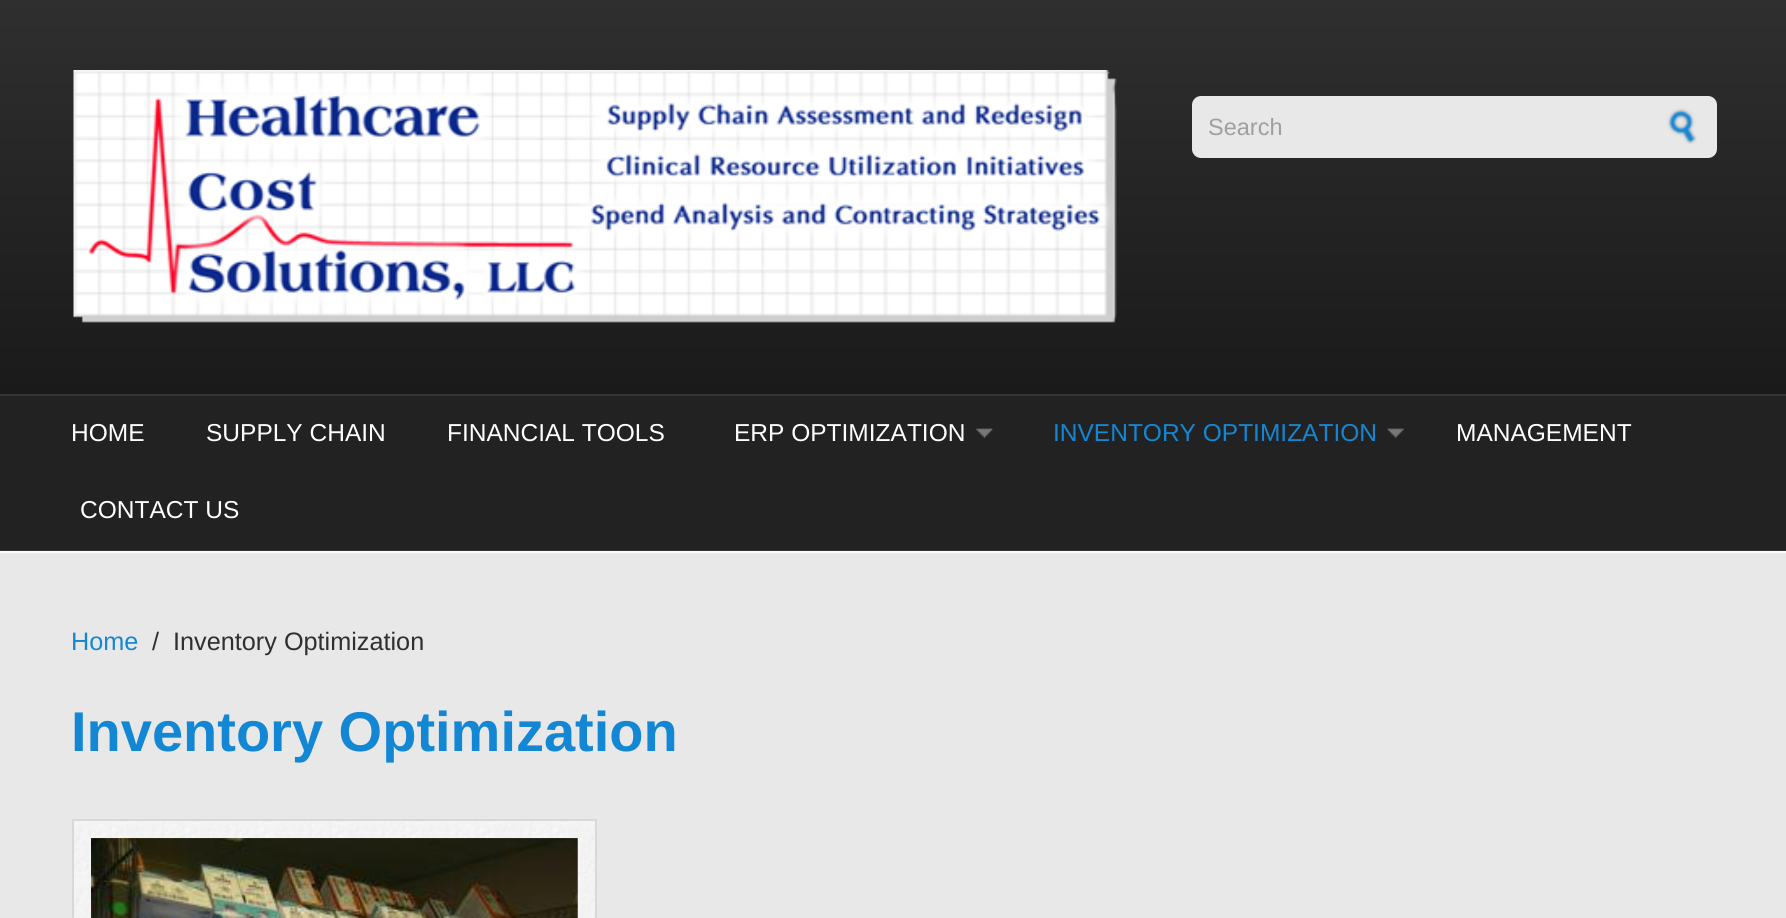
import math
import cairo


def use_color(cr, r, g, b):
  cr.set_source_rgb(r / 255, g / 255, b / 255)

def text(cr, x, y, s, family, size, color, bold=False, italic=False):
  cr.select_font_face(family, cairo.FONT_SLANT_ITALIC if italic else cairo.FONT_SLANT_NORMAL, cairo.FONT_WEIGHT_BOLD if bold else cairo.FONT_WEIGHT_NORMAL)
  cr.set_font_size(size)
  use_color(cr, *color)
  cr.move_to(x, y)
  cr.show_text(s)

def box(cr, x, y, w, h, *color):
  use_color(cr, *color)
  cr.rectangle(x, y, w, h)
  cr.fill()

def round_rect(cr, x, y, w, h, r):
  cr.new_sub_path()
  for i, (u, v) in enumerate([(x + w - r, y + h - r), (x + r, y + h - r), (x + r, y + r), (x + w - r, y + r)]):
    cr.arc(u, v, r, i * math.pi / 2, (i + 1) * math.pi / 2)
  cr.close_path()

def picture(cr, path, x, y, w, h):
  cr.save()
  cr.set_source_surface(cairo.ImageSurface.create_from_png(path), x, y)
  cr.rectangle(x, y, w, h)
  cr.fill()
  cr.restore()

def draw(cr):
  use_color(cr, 255, 255, 255)
  cr.paint()
  gradient = cairo.LinearGradient(893, 0, 893, 394)
  gradient.add_color_stop_rgba(0, 0.184, 0.184, 0.184, 1)
  gradient.add_color_stop_rgba(1, 0.106, 0.102, 0.102, 1)
  cr.set_source(gradient)
  cr.rectangle(0, 0, 1786, 394)
  cr.fill()
  picture(cr, "img_01.png", 73, 70, 1044, 253)
  use_color(cr, 232, 232, 232)
  round_rect(cr, 1192, 96, 525, 62, 9)
  cr.fill()
  picture(cr, "img_02.png", 1667, 108, 30, 36)
  box(cr, 0, 396, 1786, 154, 34, 34, 34)
  box(cr, 0, 394, 1786, 2, 53, 53, 53)
  box(cr, 0, 550, 1786, 1, 53, 53, 53)
  picture(cr, "img_03.png", 976, 428, 17, 10)
  picture(cr, "img_04.png", 1387, 428, 17, 10)
  box(cr, 0, 551, 1786, 2, 252, 252, 252)
  box(cr, 0, 553, 1786, 365, 232, 232, 232)
  picture(cr, "img_05.png", 74, 821, 521, 97)
  cr.rectangle(73, 820, 523, 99)
  use_color(cr, 216, 216, 216)
  cr.stroke()
  picture(cr, "img_06.png", 91, 838, 487, 80)
  text(cr, 1208, 135, "Search", "Liberation Sans", 23.5, (159, 159, 159))
  text(cr, 71, 441, "HOME", "Liberation Sans", 24.5, (255, 255, 255))
  text(cr, 206, 441, "SUPPLY CHAIN", "Liberation Sans", 24.5, (255, 255, 255))
  text(cr, 447, 441, "FINANCIAL TOOLS", "Liberation Sans", 24.5, (255, 255, 255))
  text(cr, 734, 441, "ERP OPTIMIZATION", "Liberation Sans", 24.5, (255, 255, 255))
  text(cr, 1053, 441, "INVENTORY OPTIMIZATION", "Liberation Sans", 24.5, (20, 135, 212))
  text(cr, 1456, 441, "MANAGEMENT", "Liberation Sans", 24.5, (255, 255, 255))
  text(cr, 80, 518, "CONTACT US", "Liberation Sans", 24.5, (255, 255, 255))
  text(cr, 71, 650, "Home", "Liberation Sans", 25.25, (20, 135, 212))
  text(cr, 152, 650, "/", "Liberation Sans", 25.25, (47, 47, 47))
  text(cr, 173, 650, "Inventory Optimization", "Liberation Sans", 25.25, (47, 47, 47))
  text(cr, 71, 751, "Inventory Optimization", "Liberation Sans", 56, (20, 135, 212), bold=True)


surface = cairo.ImageSurface(cairo.FORMAT_RGB24, 1786, 918)
cr = cairo.Context(surface)
options = cairo.FontOptions()
options.set_hint_metrics(cairo.HINT_METRICS_OFF)
options.set_hint_style(cairo.HINT_STYLE_NONE)
cr.set_font_options(options)
cr.set_miter_limit(4)
draw(cr)
surface.write_to_png("out.png")
